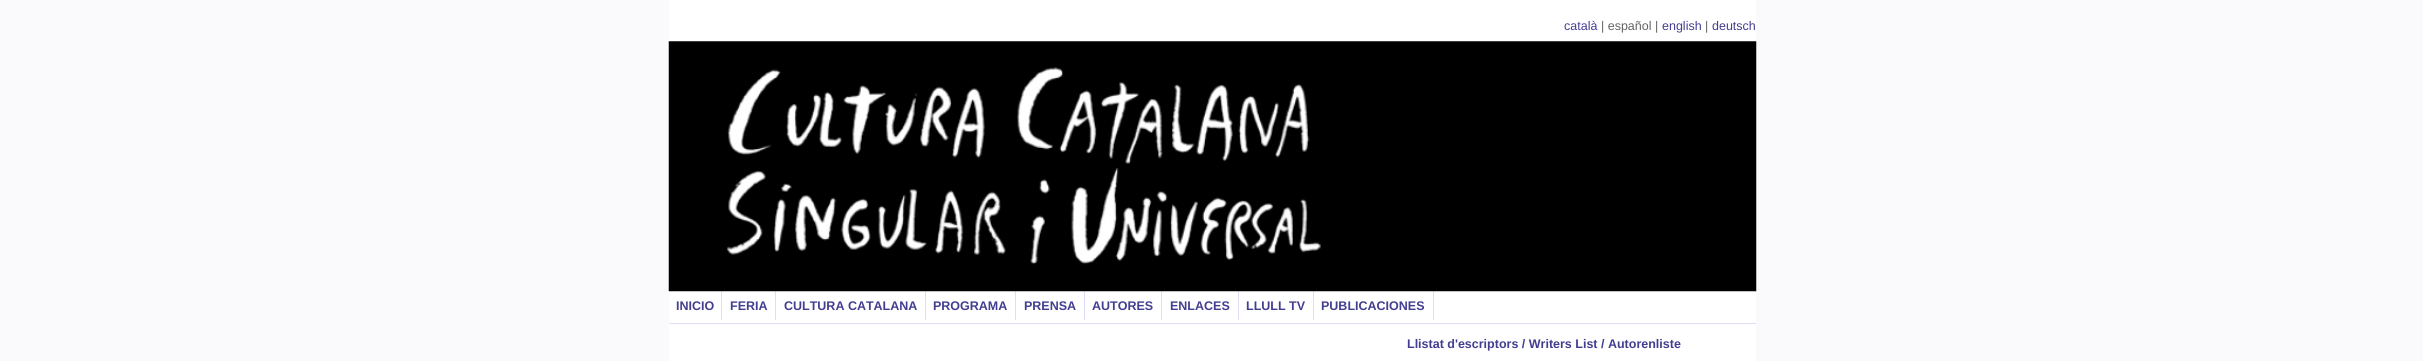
import math
import cairo


def use_color(cr, r, g, b):
  cr.set_source_rgb(r / 255, g / 255, b / 255)

def text(cr, x, y, s, family, size, color, bold=False, italic=False):
  cr.select_font_face(family, cairo.FONT_SLANT_ITALIC if italic else cairo.FONT_SLANT_NORMAL, cairo.FONT_WEIGHT_BOLD if bold else cairo.FONT_WEIGHT_NORMAL)
  cr.set_font_size(size)
  use_color(cr, *color)
  cr.move_to(x, y)
  cr.show_text(s)

def box(cr, x, y, w, h, *color):
  use_color(cr, *color)
  cr.rectangle(x, y, w, h)
  cr.fill()

def picture(cr, path, x, y, w, h):
  cr.save()
  cr.set_source_surface(cairo.ImageSurface.create_from_png(path), x, y)
  cr.rectangle(x, y, w, h)
  cr.fill()
  cr.restore()

def draw(cr):
  use_color(cr, 250, 250, 252)
  cr.paint()
  box(cr, 669, 0, 1087, 361, 255, 255, 255)
  box(cr, 721, 291, 1, 29, 223, 221, 248)
  box(cr, 775, 291, 1, 29, 223, 221, 248)
  box(cr, 925, 291, 1, 29, 223, 221, 248)
  box(cr, 1015, 291, 1, 29, 223, 221, 248)
  box(cr, 1084, 291, 1, 29, 223, 221, 248)
  box(cr, 1161, 291, 1, 29, 223, 221, 248)
  box(cr, 1238, 291, 1, 29, 223, 221, 248)
  box(cr, 1313, 291, 1, 29, 223, 221, 248)
  box(cr, 1433, 291, 1, 29, 223, 221, 248)
  picture(cr, "img_01.png", 668, 41, 1089, 251)
  box(cr, 669, 323, 1087, 1, 223, 221, 248)
  text(cr, 1564, 30, "català", "Liberation Sans", 12.5, (67, 62, 144))
  text(cr, 1601, 30, "| español |", "Liberation Sans", 12.5, (98, 98, 98))
  text(cr, 1662, 30, "english", "Liberation Sans", 12.5, (67, 62, 144))
  text(cr, 1705, 30, "|", "Liberation Sans", 12.5, (98, 98, 98))
  text(cr, 1712, 30, "deutsch", "Liberation Sans", 12.5, (67, 62, 144))
  text(cr, 676, 310, "INICIO", "Liberation Sans", 12.5, (67, 62, 144), bold=True)
  text(cr, 730, 310, "FERIA", "Liberation Sans", 12.5, (67, 62, 144), bold=True)
  text(cr, 784, 310, "CULTURA CATALANA", "Liberation Sans", 12.5, (67, 62, 144), bold=True)
  text(cr, 933, 310, "PROGRAMA", "Liberation Sans", 12.5, (67, 62, 144), bold=True)
  text(cr, 1024, 310, "PRENSA", "Liberation Sans", 12.5, (67, 62, 144), bold=True)
  text(cr, 1092, 310, "AUTORES", "Liberation Sans", 12.5, (67, 62, 144), bold=True)
  text(cr, 1170, 310, "ENLACES", "Liberation Sans", 12.5, (67, 62, 144), bold=True)
  text(cr, 1246, 310, "LLULL TV", "Liberation Sans", 12.5, (67, 62, 144), bold=True)
  text(cr, 1321, 310, "PUBLICACIONES", "Liberation Sans", 12.5, (67, 62, 144), bold=True)
  text(cr, 1407, 348, "Llistat d'escriptors / Writers List / Autorenliste", "Liberation Sans", 12.5, (67, 62, 144), bold=True)


surface = cairo.ImageSurface(cairo.FORMAT_RGB24, 2423, 361)
cr = cairo.Context(surface)
options = cairo.FontOptions()
options.set_hint_metrics(cairo.HINT_METRICS_OFF)
options.set_hint_style(cairo.HINT_STYLE_NONE)
cr.set_font_options(options)
cr.set_miter_limit(4)
draw(cr)
surface.write_to_png("out.png")
